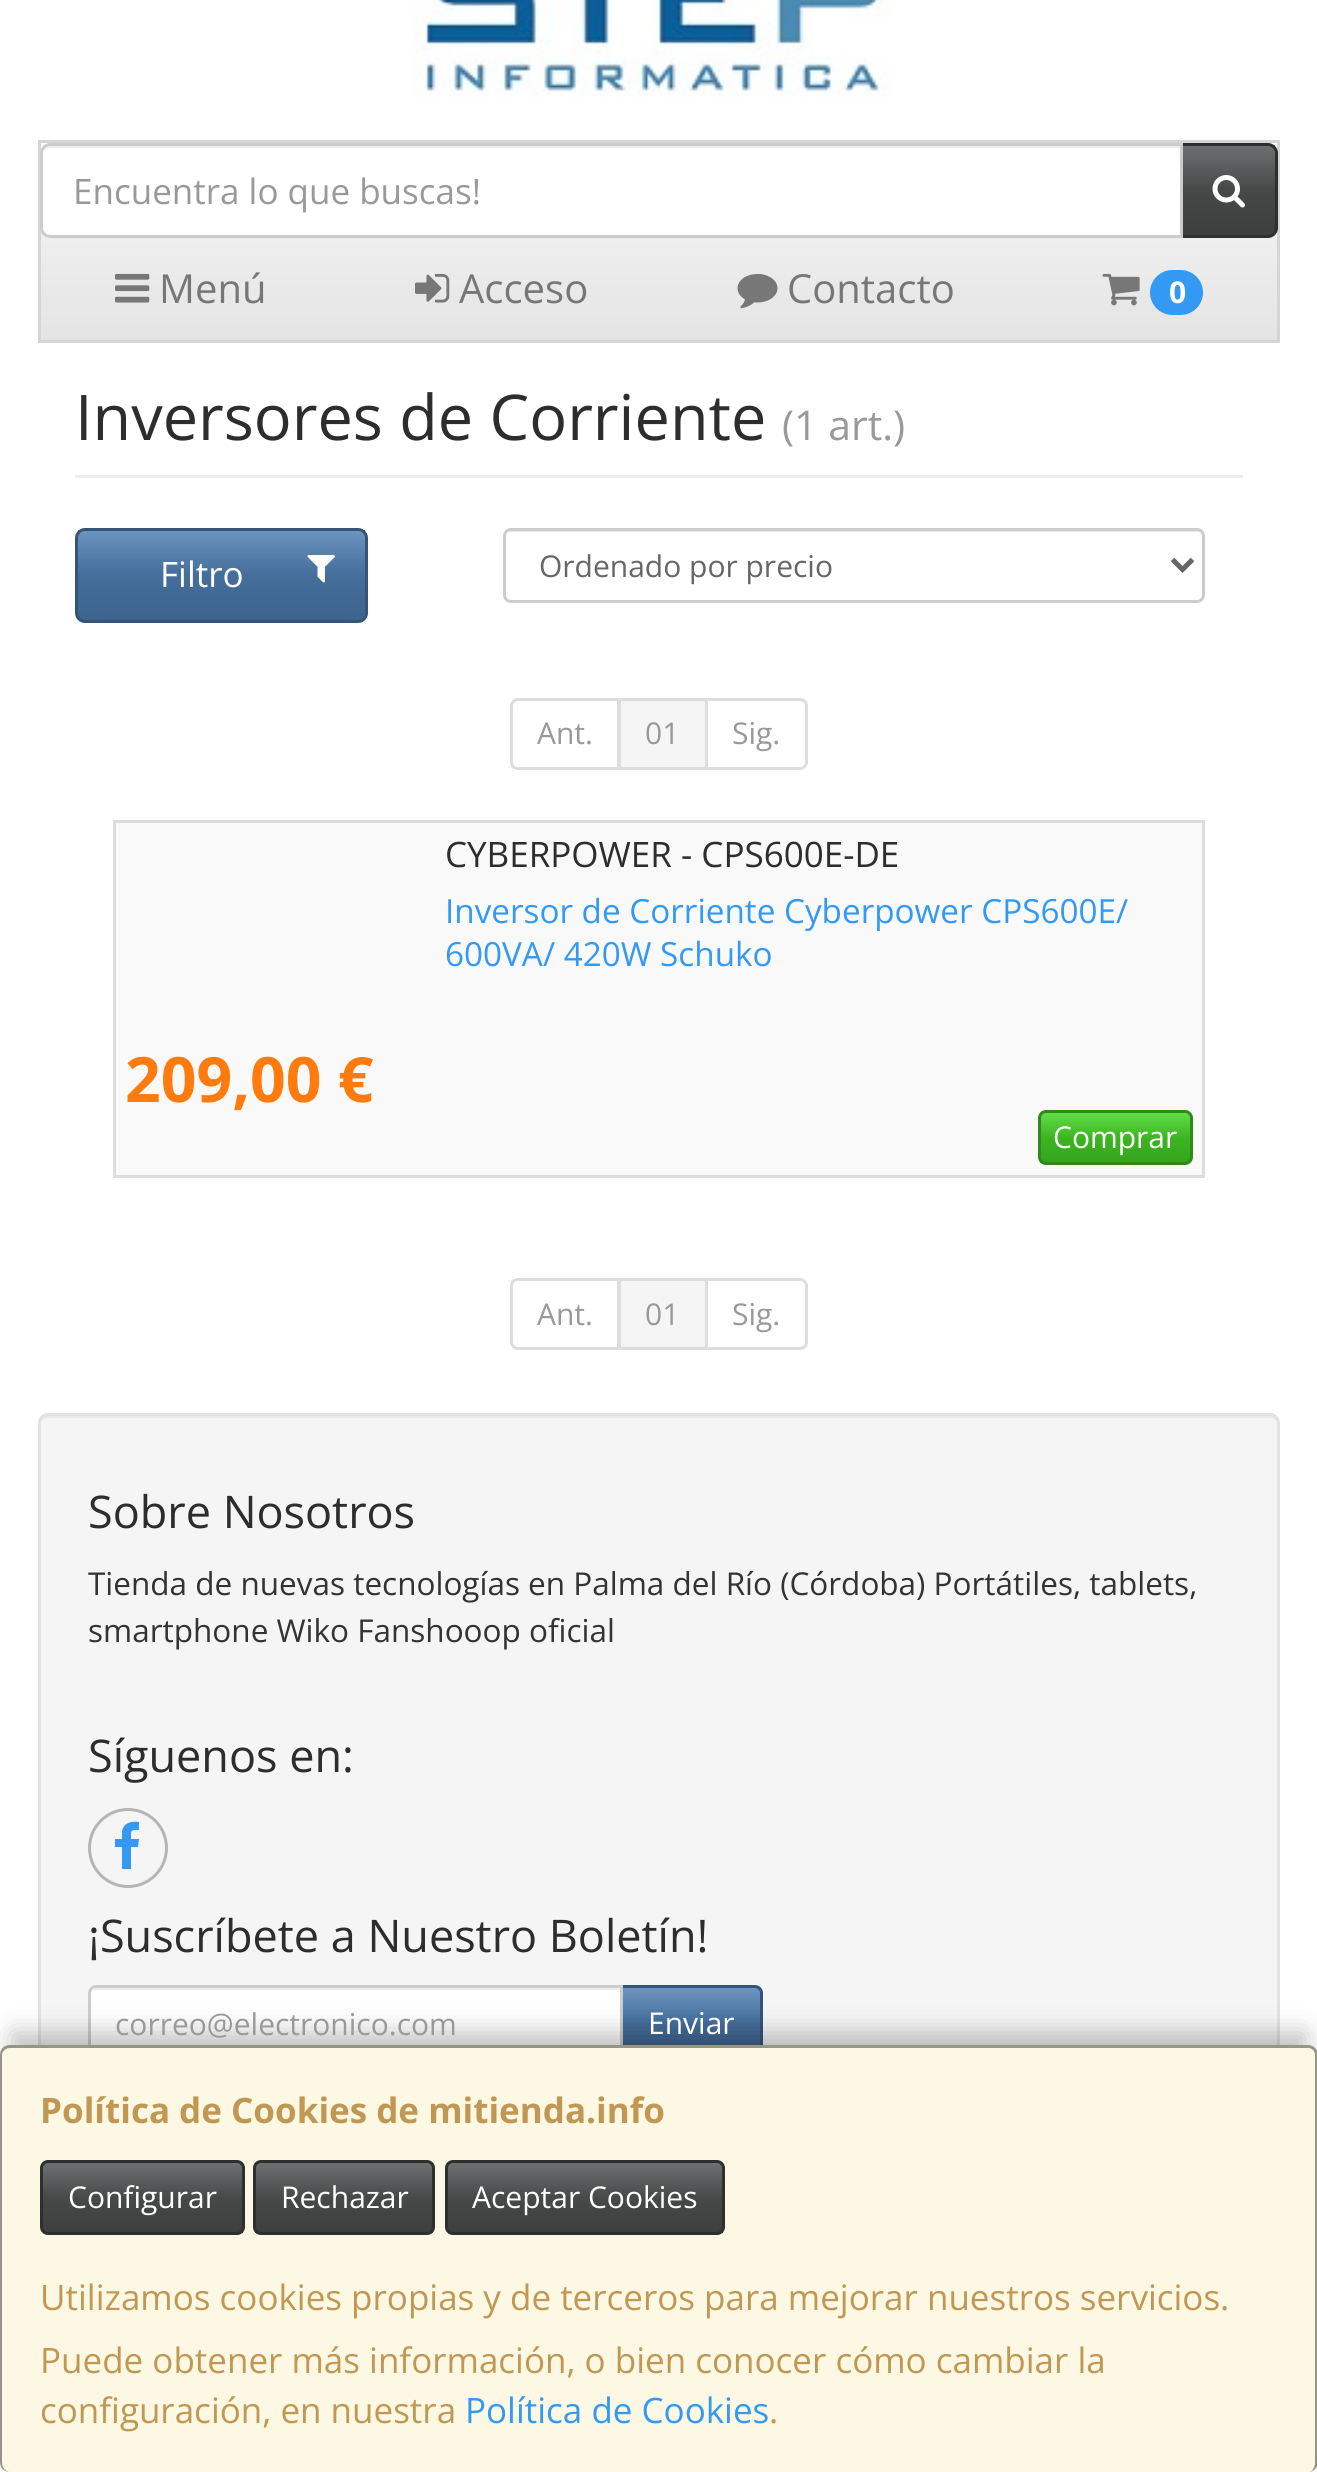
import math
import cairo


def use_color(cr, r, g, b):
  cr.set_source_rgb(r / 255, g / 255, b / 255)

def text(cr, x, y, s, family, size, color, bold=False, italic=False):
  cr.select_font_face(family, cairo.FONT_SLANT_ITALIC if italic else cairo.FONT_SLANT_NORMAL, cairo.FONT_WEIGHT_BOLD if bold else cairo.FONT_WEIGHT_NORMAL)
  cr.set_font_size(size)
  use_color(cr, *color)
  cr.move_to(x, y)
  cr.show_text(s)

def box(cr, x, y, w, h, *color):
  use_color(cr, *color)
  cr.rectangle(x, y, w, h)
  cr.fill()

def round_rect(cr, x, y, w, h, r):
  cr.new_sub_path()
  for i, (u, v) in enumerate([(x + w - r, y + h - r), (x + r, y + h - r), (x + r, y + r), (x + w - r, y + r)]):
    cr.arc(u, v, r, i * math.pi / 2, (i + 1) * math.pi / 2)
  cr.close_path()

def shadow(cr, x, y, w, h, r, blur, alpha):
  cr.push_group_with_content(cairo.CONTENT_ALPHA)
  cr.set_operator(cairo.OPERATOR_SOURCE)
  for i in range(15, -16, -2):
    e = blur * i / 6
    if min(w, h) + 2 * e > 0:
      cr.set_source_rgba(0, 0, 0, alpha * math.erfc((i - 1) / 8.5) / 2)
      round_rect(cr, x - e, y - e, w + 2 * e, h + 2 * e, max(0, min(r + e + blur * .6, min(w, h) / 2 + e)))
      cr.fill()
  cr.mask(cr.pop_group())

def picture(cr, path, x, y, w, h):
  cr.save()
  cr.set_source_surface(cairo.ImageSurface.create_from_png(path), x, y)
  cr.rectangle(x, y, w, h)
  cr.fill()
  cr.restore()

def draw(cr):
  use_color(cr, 255, 255, 255)
  cr.paint()
  picture(cr, "img_01.png", 412, 0, 480, 98)
  gradient = cairo.LinearGradient(659, 142, 659, 340)
  gradient.add_color_stop_rgba(0, 1, 1, 1, 1)
  gradient.add_color_stop_rgba(0.5, 0.933, 0.933, 0.933, 1)
  gradient.add_color_stop_rgba(1, 0.894, 0.894, 0.894, 1)
  cr.set_source(gradient)
  cr.rectangle(41, 157, 1236, 183)
  cr.fill()
  cr.rectangle(39.5, 141.5, 1239, 200)
  use_color(cr, 213, 213, 213)
  cr.set_line_width(3)
  cr.stroke()
  gradient = cairo.LinearGradient(1229, 145, 1229, 235)
  gradient.add_color_stop_rgba(0, 0.427, 0.439, 0.439, 1)
  gradient.add_color_stop_rgba(0.5, 0.278, 0.286, 0.286, 1)
  gradient.add_color_stop_rgba(1, 0.239, 0.247, 0.247, 1)
  cr.set_source(gradient)
  cr.rectangle(1183, 145, 92, 90)
  cr.fill()
  cr.new_path()
  cr.move_to(1181.5, 144.5)
  cr.line_to(1268, 144.5)
  cr.curve_to(1272.5, 144.5, 1276.5, 148.5, 1276.5, 153)
  cr.line_to(1276.5, 228)
  cr.curve_to(1276.5, 232.5, 1272.5, 236.5, 1268, 236.5)
  cr.line_to(1181.5, 236.5)
  cr.close_path()
  use_color(cr, 46, 47, 47)
  cr.stroke()
  use_color(cr, 255, 255, 255)
  cr.new_path()
  cr.move_to(50, 143)
  cr.line_to(1183, 143)
  cr.line_to(1183, 238)
  cr.line_to(50, 238)
  cr.curve_to(44.5, 238, 40, 233.5, 40, 228)
  cr.line_to(40, 153)
  cr.curve_to(40, 147.5, 44.5, 143, 50, 143)
  cr.close_path()
  cr.fill()
  use_color(cr, 236, 236, 236)
  cr.new_path()
  cr.move_to(50, 148)
  cr.line_to(1180, 148)
  cr.line_to(1180, 145)
  cr.line_to(51, 145)
  cr.curve_to(47, 145, 44, 148, 43, 151)
  cr.curve_to(45, 149, 47, 148, 50, 148)
  cr.close_path()
  cr.fill()
  cr.new_path()
  cr.move_to(50, 144.5)
  cr.line_to(1181.5, 144.5)
  cr.line_to(1181.5, 236.5)
  cr.line_to(50, 236.5)
  cr.curve_to(45.5, 236.5, 41.5, 232.5, 41.5, 228)
  cr.line_to(41.5, 153)
  cr.curve_to(41.5, 148.5, 45.5, 144.5, 50, 144.5)
  cr.close_path()
  use_color(cr, 204, 204, 204)
  cr.stroke()
  picture(cr, "img_02.png", 1212, 175, 33, 33)
  picture(cr, "img_03.png", 115, 273, 35, 30)
  picture(cr, "img_04.png", 415, 273, 35, 30)
  picture(cr, "img_05.png", 737, 273, 41, 36)
  picture(cr, "img_06.png", 1102, 273, 38, 33)
  use_color(cr, 51, 153, 243)
  round_rect(cr, 1150, 270, 53, 45, 22.5)
  cr.fill()
  box(cr, 75, 475, 1168, 3, 238, 238, 238)
  gradient = cairo.LinearGradient(221, 530, 221, 620)
  gradient.add_color_stop_rgba(0, 0.427, 0.58, 0.749, 1)
  gradient.add_color_stop_rgba(0.5, 0.267, 0.431, 0.608, 1)
  gradient.add_color_stop_rgba(1, 0.243, 0.392, 0.553, 1)
  cr.set_source(gradient)
  cr.rectangle(78, 530, 287, 90)
  cr.fill()
  round_rect(cr, 76.5, 529.5, 290, 92, 8.5)
  use_color(cr, 52, 85, 120)
  cr.stroke()
  picture(cr, "img_07.png", 307, 555, 28, 28)
  use_color(cr, 236, 236, 236)
  cr.new_path()
  cr.move_to(510, 532)
  cr.line_to(1198, 532)
  cr.curve_to(1200, 532, 1202, 535, 1202, 538)
  cr.line_to(1202, 598)
  cr.curve_to(1203, 597, 1203, 596, 1203, 595)
  cr.line_to(1203, 535)
  cr.curve_to(1203, 532, 1201, 530, 1198, 530)
  cr.line_to(510, 530)
  cr.curve_to(507, 530, 505, 532, 505, 535)
  cr.line_to(505, 538)
  cr.curve_to(505, 535, 507, 532, 510, 532)
  cr.close_path()
  cr.fill()
  round_rect(cr, 504.5, 529.5, 699, 72, 6.5)
  use_color(cr, 204, 204, 204)
  cr.stroke()
  cr.new_path()
  cr.move_to(1172.5, 559.5)
  cr.line_to(1182.5, 569.5)
  cr.line_to(1192.5, 559.5)
  use_color(cr, 102, 102, 102)
  cr.set_line_width(5)
  cr.stroke()
  cr.new_path()
  cr.move_to(518, 699.5)
  cr.line_to(618.5, 699.5)
  cr.line_to(618.5, 768.5)
  cr.line_to(518, 768.5)
  cr.curve_to(514.5, 768.5, 511.5, 765.5, 511.5, 762)
  cr.line_to(511.5, 706)
  cr.curve_to(511.5, 702.5, 514.5, 699.5, 518, 699.5)
  cr.close_path()
  use_color(cr, 221, 221, 221)
  cr.set_line_width(3)
  cr.stroke()
  cr.new_path()
  cr.move_to(706.5, 699.5)
  cr.line_to(800, 699.5)
  cr.curve_to(803.5, 699.5, 806.5, 702.5, 806.5, 706)
  cr.line_to(806.5, 762)
  cr.curve_to(806.5, 765.5, 803.5, 768.5, 800, 768.5)
  cr.line_to(706.5, 768.5)
  cr.close_path()
  cr.stroke()
  use_color(cr, 245, 245, 245)
  cr.rectangle(619.5, 699.5, 87, 69)
  cr.fill_preserve()
  use_color(cr, 221, 221, 221)
  cr.stroke()
  use_color(cr, 249, 249, 249)
  cr.rectangle(114.5, 821.5, 1089, 355)
  cr.fill_preserve()
  use_color(cr, 221, 221, 221)
  cr.stroke()
  gradient = cairo.LinearGradient(1115, 1113, 1115, 1163)
  gradient.add_color_stop_rgba(0, 0.38, 0.867, 0.271, 1)
  gradient.add_color_stop_rgba(0.5, 0.235, 0.71, 0.129, 1)
  gradient.add_color_stop_rgba(1, 0.212, 0.643, 0.118, 1)
  cr.set_source(gradient)
  cr.rectangle(1040, 1113, 150, 50)
  cr.fill()
  round_rect(cr, 1039.5, 1111.5, 152, 52, 6.5)
  use_color(cr, 46, 138, 25)
  cr.stroke()
  cr.new_path()
  cr.move_to(518, 1279.5)
  cr.line_to(618.5, 1279.5)
  cr.line_to(618.5, 1348.5)
  cr.line_to(518, 1348.5)
  cr.curve_to(514.5, 1348.5, 511.5, 1345.5, 511.5, 1342)
  cr.line_to(511.5, 1286)
  cr.curve_to(511.5, 1282.5, 514.5, 1279.5, 518, 1279.5)
  cr.close_path()
  use_color(cr, 221, 221, 221)
  cr.stroke()
  cr.new_path()
  cr.move_to(706.5, 1279.5)
  cr.line_to(800, 1279.5)
  cr.curve_to(803.5, 1279.5, 806.5, 1282.5, 806.5, 1286)
  cr.line_to(806.5, 1342)
  cr.curve_to(806.5, 1345.5, 803.5, 1348.5, 800, 1348.5)
  cr.line_to(706.5, 1348.5)
  cr.close_path()
  cr.stroke()
  use_color(cr, 245, 245, 245)
  cr.rectangle(619.5, 1279.5, 87, 69)
  cr.fill_preserve()
  use_color(cr, 221, 221, 221)
  cr.stroke()
  use_color(cr, 245, 245, 245)
  round_rect(cr, 38, 1413, 1242, 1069, 10)
  cr.fill()
  use_color(cr, 233, 233, 233)
  cr.new_path()
  cr.move_to(48, 1418)
  cr.line_to(1270, 1418)
  cr.curve_to(1274, 1418, 1278, 1421, 1278, 1425)
  cr.line_to(1278, 1423)
  cr.curve_to(1278, 1419, 1274, 1415, 1270, 1415)
  cr.line_to(48, 1415)
  cr.curve_to(44, 1415, 40, 1419, 40, 1423)
  cr.line_to(40, 1425)
  cr.curve_to(40, 1421, 43, 1418, 48, 1418)
  cr.close_path()
  cr.fill()
  round_rect(cr, 39.5, 1414.5, 1239, 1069, 8.5)
  use_color(cr, 227, 227, 227)
  cr.stroke()
  cr.arc(128, 1848, 38.5, 0, 2 * math.pi)
  use_color(cr, 181, 181, 181)
  cr.stroke()
  use_color(cr, 51, 153, 243)
  cr.new_path()
  cr.move_to(139, 1822)
  cr.line_to(139, 1830)
  cr.curve_to(130, 1830, 131, 1830, 131, 1839)
  cr.line_to(139, 1839)
  cr.line_to(138, 1847)
  cr.line_to(131, 1847)
  cr.line_to(131, 1869)
  cr.line_to(122, 1869)
  cr.line_to(122, 1847)
  cr.line_to(115, 1847)
  cr.line_to(115, 1839)
  cr.line_to(122, 1839)
  cr.line_to(122, 1831)
  cr.curve_to(124, 1822, 132, 1821, 139, 1822)
  cr.close_path()
  cr.fill()
  gradient = cairo.LinearGradient(691, 1988, 691, 2058)
  gradient.add_color_stop_rgba(0, 0.427, 0.58, 0.749, 1)
  gradient.add_color_stop_rgba(0.5, 0.267, 0.431, 0.608, 1)
  gradient.add_color_stop_rgba(1, 0.243, 0.392, 0.553, 1)
  cr.set_source(gradient)
  cr.rectangle(623, 1988, 137, 57)
  cr.fill()
  cr.new_path()
  cr.move_to(621.5, 1986.5)
  cr.line_to(755, 1986.5)
  cr.curve_to(758.5, 1986.5, 761.5, 1989.5, 761.5, 1993)
  cr.line_to(761.5, 2052)
  cr.curve_to(761.5, 2055.5, 758.5, 2058.5, 755, 2058.5)
  cr.line_to(621.5, 2058.5)
  cr.close_path()
  use_color(cr, 52, 85, 120)
  cr.stroke()
  use_color(cr, 255, 255, 255)
  cr.new_path()
  cr.move_to(96, 1985)
  cr.line_to(623, 1985)
  cr.line_to(623, 2060)
  cr.line_to(96, 2060)
  cr.curve_to(91.5, 2060, 88, 2056.5, 88, 2052)
  cr.line_to(88, 1993)
  cr.curve_to(88, 1988.5, 91.5, 1985, 96, 1985)
  cr.close_path()
  cr.fill()
  use_color(cr, 236, 236, 236)
  cr.new_path()
  cr.move_to(95, 1990)
  cr.line_to(620, 1990)
  cr.line_to(620, 1988)
  cr.line_to(95, 1988)
  cr.curve_to(91, 1988, 90, 1992, 90, 1995)
  cr.curve_to(90, 1992, 92, 1990, 95, 1990)
  cr.close_path()
  cr.fill()
  cr.new_path()
  cr.move_to(96, 1986.5)
  cr.line_to(621.5, 1986.5)
  cr.line_to(621.5, 2058.5)
  cr.line_to(96, 2058.5)
  cr.curve_to(92.5, 2058.5, 89.5, 2055.5, 89.5, 2052)
  cr.line_to(89.5, 1993)
  cr.curve_to(89.5, 1989.5, 92.5, 1986.5, 96, 1986.5)
  cr.close_path()
  use_color(cr, 204, 204, 204)
  cr.stroke()
  use_color(cr, 0, 0, 0)
  shadow(cr, 13, 2033, 1292, 402, 0, 12.5, 0.25)
  use_color(cr, 252, 248, 227)
  round_rect(cr, 0, 2045, 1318, 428, 10)
  cr.fill()
  cr.set_source_rgba(0, 0, 0, 0.4)
  cr.set_fill_rule(cairo.FILL_RULE_EVEN_ODD)
  cr.new_path()
  cr.move_to(10, 2045)
  cr.line_to(1308, 2045)
  cr.curve_to(1313, 2045, 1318, 2049, 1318, 2055)
  cr.line_to(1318, 2462)
  cr.curve_to(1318, 2468, 1313, 2472, 1308, 2472)
  cr.line_to(10, 2472)
  cr.curve_to(4, 2472, 0, 2468, 0, 2462)
  cr.line_to(0, 2055)
  cr.curve_to(0, 2049, 4, 2045, 10, 2045)
  cr.close_path()
  cr.move_to(10, 2048)
  cr.line_to(1308, 2048)
  cr.curve_to(1312, 2048, 1315, 2051, 1315, 2055)
  cr.line_to(1315, 2462)
  cr.curve_to(1315, 2468, 1312, 2472, 1308, 2472)
  cr.line_to(10, 2472)
  cr.curve_to(6, 2472, 2, 2468, 2, 2462)
  cr.line_to(2, 2055)
  cr.curve_to(2, 2051, 6, 2048, 10, 2048)
  cr.close_path()
  cr.fill()
  gradient = cairo.LinearGradient(143, 2163, 143, 2233)
  gradient.add_color_stop_rgba(0, 0.427, 0.439, 0.439, 1)
  gradient.add_color_stop_rgba(0.5, 0.278, 0.286, 0.286, 1)
  gradient.add_color_stop_rgba(1, 0.239, 0.247, 0.247, 1)
  cr.set_source(gradient)
  cr.rectangle(43, 2163, 200, 70)
  cr.fill()
  round_rect(cr, 41.5, 2161.5, 202, 72, 6.5)
  use_color(cr, 46, 47, 47)
  cr.stroke()
  gradient = cairo.LinearGradient(344, 2163, 344, 2233)
  gradient.add_color_stop_rgba(0, 0.427, 0.439, 0.439, 1)
  gradient.add_color_stop_rgba(0.5, 0.278, 0.286, 0.286, 1)
  gradient.add_color_stop_rgba(1, 0.239, 0.247, 0.247, 1)
  cr.set_source(gradient)
  cr.rectangle(255, 2163, 178, 70)
  cr.fill()
  round_rect(cr, 254.5, 2161.5, 179, 72, 6.5)
  use_color(cr, 46, 47, 47)
  cr.stroke()
  gradient = cairo.LinearGradient(585, 2163, 585, 2233)
  gradient.add_color_stop_rgba(0, 0.427, 0.439, 0.439, 1)
  gradient.add_color_stop_rgba(0.5, 0.278, 0.286, 0.286, 1)
  gradient.add_color_stop_rgba(1, 0.239, 0.247, 0.247, 1)
  cr.set_source(gradient)
  cr.rectangle(448, 2163, 275, 70)
  cr.fill()
  round_rect(cr, 446.5, 2161.5, 277, 72, 6.5)
  use_color(cr, 46, 47, 47)
  cr.stroke()
  text(cr, 73, 204, "Encuentra lo que buscas!", "Open Sans", 35, (153, 153, 153))
  text(cr, 159, 303, "Menú", "Open Sans", 40, (119, 119, 119))
  text(cr, 459, 303, "Acceso", "Open Sans", 40, (119, 119, 119))
  text(cr, 787, 303, "Contacto", "Open Sans", 40, (119, 119, 119))
  text(cr, 1169, 303, "0", "Open Sans", 30, (255, 255, 255), bold=True)
  text(cr, 75, 440, "Inversores de Corriente", "Open Sans", 63, (45, 45, 45))
  text(cr, 782, 440, "(1 art.)", "Open Sans", 41, (153, 153, 153))
  text(cr, 160, 587, "Filtro", "Open Sans", 35, (255, 255, 255))
  text(cr, 539, 577, "Ordenado por precio", "Open Sans", 30, (102, 102, 102))
  text(cr, 537, 744, "Ant.", "Open Sans", 30, (153, 153, 153))
  text(cr, 645, 744, "01", "Open Sans", 30, (153, 153, 153))
  text(cr, 732, 744, "Sig.", "Open Sans", 30, (153, 153, 153))
  text(cr, 445, 867, "CYBERPOWER - CPS600E-DE", "Open Sans", 35, (45, 45, 45))
  text(cr, 445, 923, "Inversor de Corriente Cyberpower CPS600E/", "Open Sans", 33.25, (51, 153, 243))
  text(cr, 445, 966, "600VA/ 420W Schuko", "Open Sans", 33.25, (51, 153, 243))
  text(cr, 125, 1102, "209,00 €", "Open Sans", 62.5, (255, 123, 13), bold=True)
  text(cr, 1053, 1148, "Comprar", "Open Sans", 30, (255, 255, 255))
  text(cr, 537, 1325, "Ant.", "Open Sans", 30, (153, 153, 153))
  text(cr, 645, 1325, "01", "Open Sans", 30, (153, 153, 153))
  text(cr, 732, 1325, "Sig.", "Open Sans", 30, (153, 153, 153))
  text(cr, 88, 1528, "Sobre Nosotros", "Open Sans", 45, (45, 45, 45))
  text(cr, 88, 1595, "Tienda de nuevas tecnologías en Palma del Río (Córdoba) Portátiles, tablets,", "Open Sans", 31.5, (51, 51, 51))
  text(cr, 88, 1642, "smartphone Wiko Fanshooop oficial", "Open Sans", 31.5, (51, 51, 51))
  text(cr, 88, 1772, "Síguenos en:", "Open Sans", 45, (45, 45, 45))
  text(cr, 88, 1952, "¡Suscríbete a Nuestro Boletín!", "Open Sans", 45, (45, 45, 45))
  text(cr, 115, 2035, "correo@electronico.com", "Open Sans", 30, (153, 153, 153))
  text(cr, 648, 2034, "Enviar", "Open Sans", 30, (255, 255, 255))
  text(cr, 40, 2123, "Política de Cookies de mitienda.info", "Open Sans", 35, (192, 152, 83), bold=True)
  text(cr, 68, 2208, "Configurar", "Open Sans", 30, (255, 255, 255))
  text(cr, 281, 2208, "Rechazar", "Open Sans", 30, (255, 255, 255))
  text(cr, 472, 2208, "Aceptar Cookies", "Open Sans", 30, (255, 255, 255))
  text(cr, 40, 2310, "Utilizamos cookies propias y de terceros para mejorar nuestros servicios.", "Open Sans", 35, (192, 152, 83))
  text(cr, 40, 2373, "Puede obtener más información, o bien conocer cómo cambiar la", "Open Sans", 35, (192, 152, 83))
  text(cr, 40, 2423, "configuración, en nuestra", "Open Sans", 35, (192, 152, 83))
  text(cr, 465, 2423, "Política de Cookies", "Open Sans", 35, (51, 153, 243))
  text(cr, 769, 2423, ".", "Open Sans", 35, (192, 152, 83))


surface = cairo.ImageSurface(cairo.FORMAT_RGB24, 1317, 2472)
cr = cairo.Context(surface)
options = cairo.FontOptions()
options.set_hint_metrics(cairo.HINT_METRICS_OFF)
options.set_hint_style(cairo.HINT_STYLE_NONE)
cr.set_font_options(options)
cr.set_miter_limit(4)
draw(cr)
surface.write_to_png("out.png")
